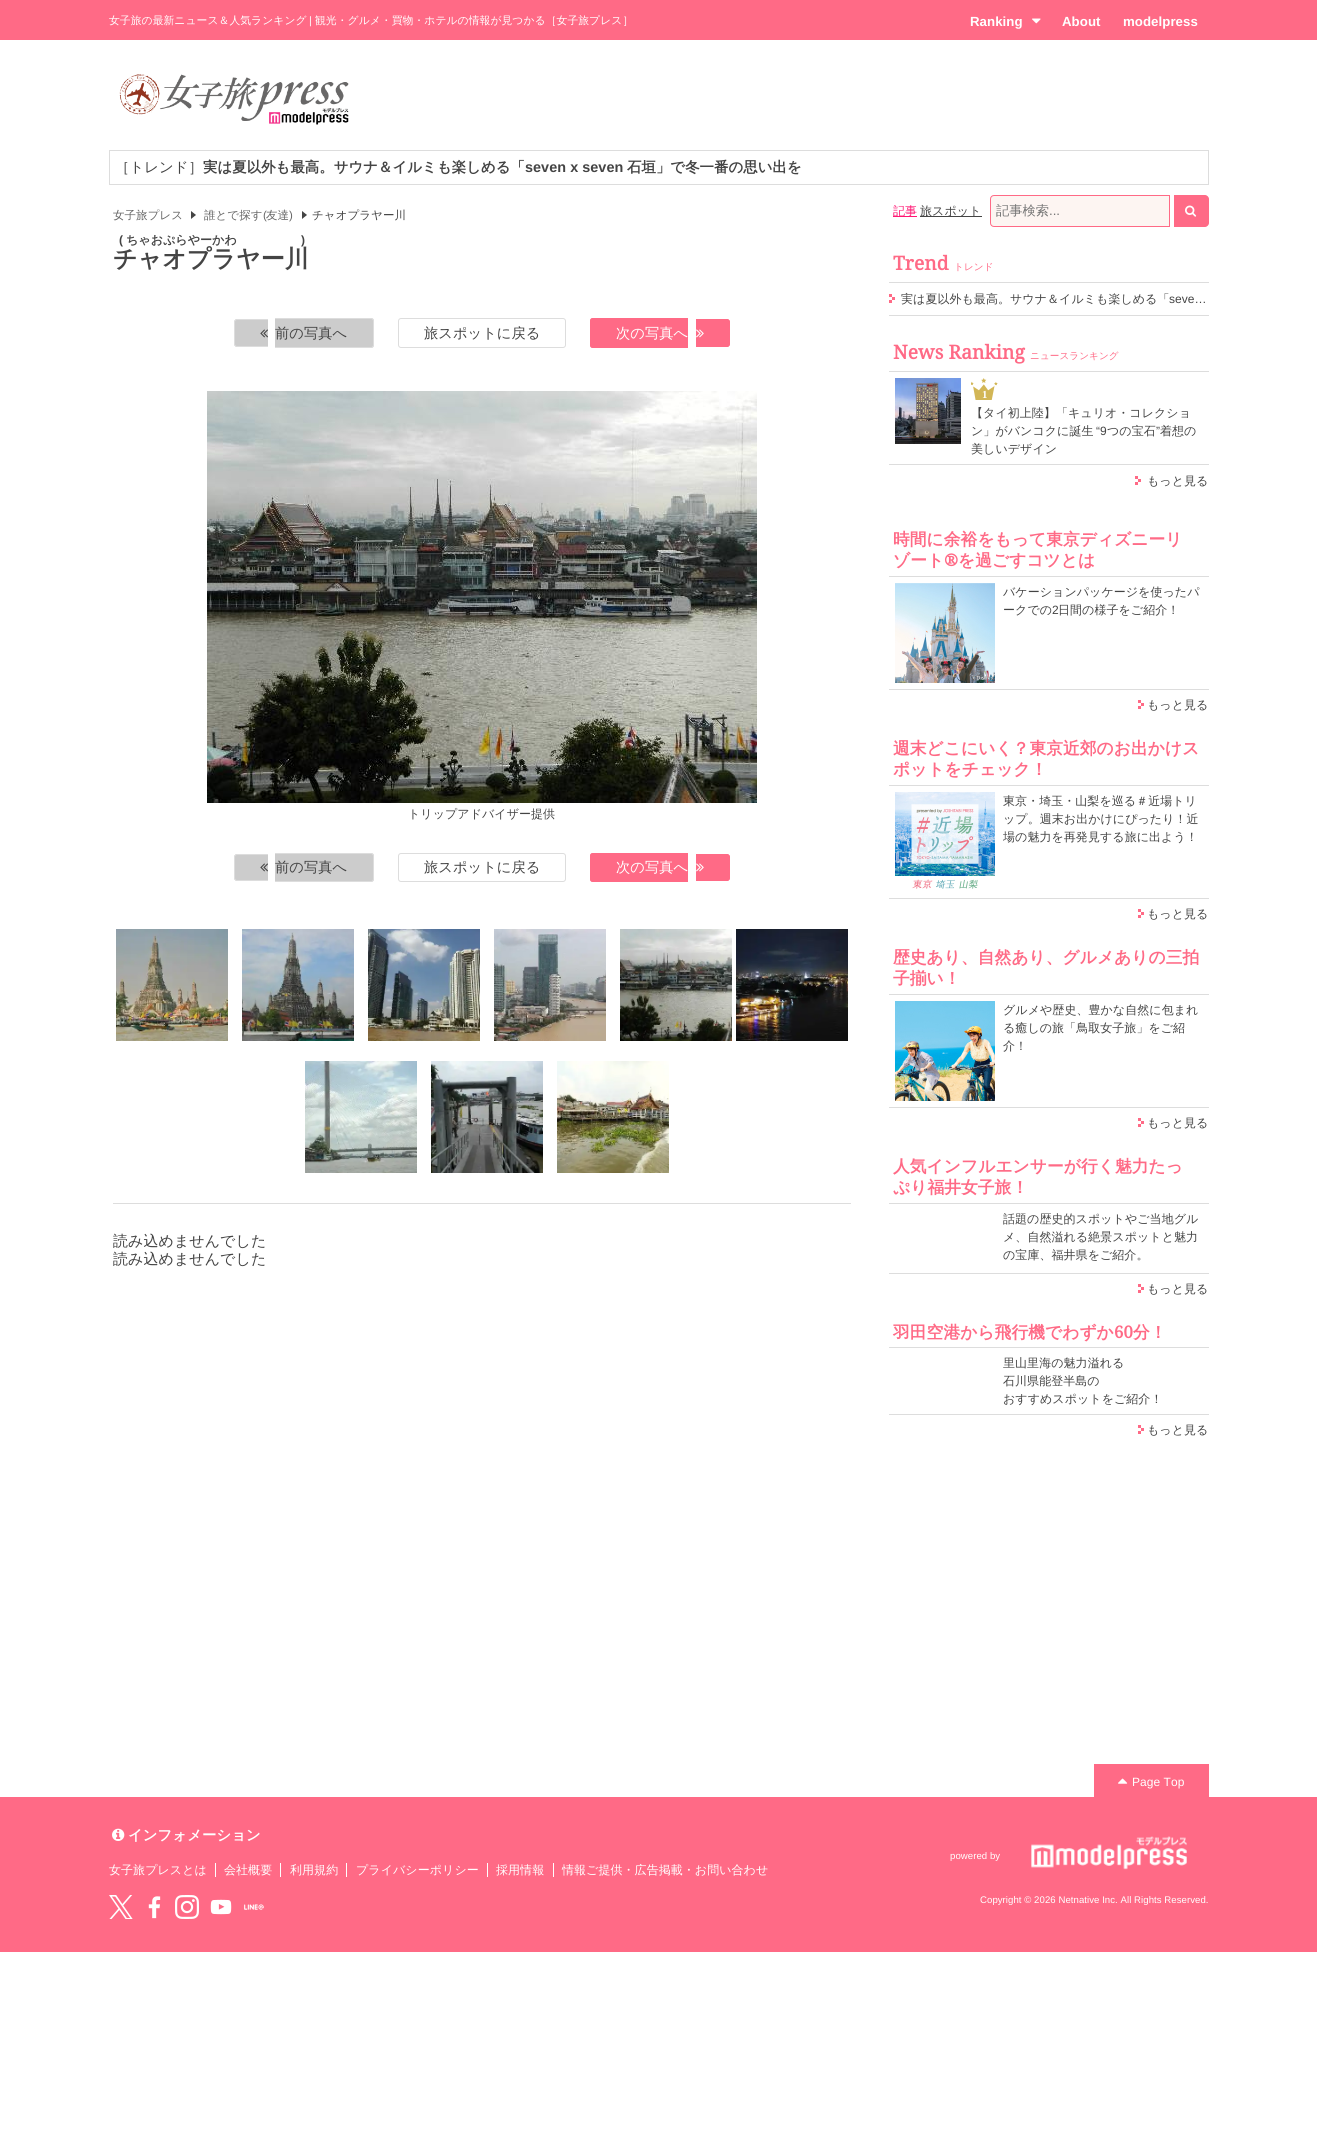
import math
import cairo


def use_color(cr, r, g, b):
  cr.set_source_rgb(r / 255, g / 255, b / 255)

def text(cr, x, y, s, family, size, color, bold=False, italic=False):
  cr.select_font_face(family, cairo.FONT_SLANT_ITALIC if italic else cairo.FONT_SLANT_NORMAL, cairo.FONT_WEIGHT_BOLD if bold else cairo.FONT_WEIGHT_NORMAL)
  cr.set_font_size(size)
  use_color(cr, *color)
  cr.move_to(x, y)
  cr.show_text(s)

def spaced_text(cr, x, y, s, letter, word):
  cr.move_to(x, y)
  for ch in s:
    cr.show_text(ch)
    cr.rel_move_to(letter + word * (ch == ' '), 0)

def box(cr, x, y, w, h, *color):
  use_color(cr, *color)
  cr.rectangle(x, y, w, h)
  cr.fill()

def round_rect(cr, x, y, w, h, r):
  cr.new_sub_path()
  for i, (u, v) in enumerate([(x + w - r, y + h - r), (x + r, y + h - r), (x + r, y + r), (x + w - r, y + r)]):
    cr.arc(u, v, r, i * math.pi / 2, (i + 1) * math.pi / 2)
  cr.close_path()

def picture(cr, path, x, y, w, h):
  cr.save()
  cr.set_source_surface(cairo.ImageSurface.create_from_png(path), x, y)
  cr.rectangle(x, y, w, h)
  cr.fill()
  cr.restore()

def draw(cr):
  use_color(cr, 255, 255, 255)
  cr.paint()
  box(cr, 0, 0, 1317, 40, 255, 106, 134)
  picture(cr, "img_01.png", 1032, 18, 9, 6)
  picture(cr, "img_02.png", 119, 74, 230, 51)
  cr.rectangle(109.5, 150.5, 1099, 34)
  use_color(cr, 221, 221, 221)
  cr.set_line_width(1)
  cr.stroke()
  use_color(cr, 68, 68, 68)
  cr.new_path()
  cr.move_to(191, 219)
  cr.line_to(191, 211)
  cr.line_to(196, 215)
  cr.close_path()
  cr.fill()
  cr.new_path()
  cr.move_to(302, 219)
  cr.line_to(302, 211)
  cr.line_to(307, 215)
  cr.close_path()
  cr.fill()
  use_color(cr, 204, 204, 204)
  cr.new_path()
  cr.move_to(237, 319)
  cr.line_to(268, 319)
  cr.line_to(268, 347)
  cr.line_to(237, 347)
  cr.curve_to(235.5, 347, 234, 345.5, 234, 344)
  cr.line_to(234, 322)
  cr.curve_to(234, 320.5, 235.5, 319, 237, 319)
  cr.close_path()
  cr.fill()
  use_color(cr, 221, 221, 221)
  cr.set_fill_rule(cairo.FILL_RULE_EVEN_ODD)
  cr.new_path()
  cr.move_to(237, 319)
  cr.line_to(268, 319)
  cr.line_to(268, 347)
  cr.line_to(237, 347)
  cr.curve_to(235.5, 347, 234, 345.5, 234, 344)
  cr.line_to(234, 322)
  cr.curve_to(234, 320.5, 235.5, 319, 237, 319)
  cr.close_path()
  cr.move_to(237, 320)
  cr.line_to(268, 320)
  cr.line_to(268, 346)
  cr.line_to(237, 346)
  cr.curve_to(236, 346, 235, 345, 235, 344)
  cr.line_to(235, 322)
  cr.curve_to(235, 321, 236, 320, 237, 320)
  cr.close_path()
  cr.fill()
  use_color(cr, 204, 204, 204)
  cr.new_path()
  cr.move_to(275, 318)
  cr.line_to(371, 318)
  cr.curve_to(372.5, 318, 374, 319.5, 374, 321)
  cr.line_to(374, 345)
  cr.curve_to(374, 346.5, 372.5, 348, 371, 348)
  cr.line_to(275, 348)
  cr.close_path()
  cr.fill()
  use_color(cr, 221, 221, 221)
  cr.new_path()
  cr.move_to(275, 318)
  cr.line_to(371, 318)
  cr.curve_to(373, 318, 374, 319, 374, 321)
  cr.line_to(374, 345)
  cr.curve_to(374, 347, 373, 348, 371, 348)
  cr.line_to(275, 348)
  cr.close_path()
  cr.move_to(275, 319)
  cr.line_to(371, 319)
  cr.curve_to(372, 319, 373, 320, 373, 321)
  cr.line_to(373, 345)
  cr.curve_to(373, 346, 372, 347, 371, 347)
  cr.line_to(275, 347)
  cr.close_path()
  cr.fill()
  picture(cr, "img_03.png", 260, 329, 8, 9)
  round_rect(cr, 398.5, 318.5, 167, 29, 2.5)
  cr.stroke()
  use_color(cr, 255, 106, 134)
  cr.new_path()
  cr.move_to(593, 318)
  cr.line_to(688, 318)
  cr.line_to(688, 348)
  cr.line_to(593, 348)
  cr.curve_to(591.5, 348, 590, 346.5, 590, 345)
  cr.line_to(590, 321)
  cr.curve_to(590, 319.5, 591.5, 318, 593, 318)
  cr.close_path()
  cr.fill()
  cr.new_path()
  cr.move_to(593, 318)
  cr.line_to(688, 318)
  cr.line_to(688, 348)
  cr.line_to(593, 348)
  cr.curve_to(591, 348, 590, 347, 590, 345)
  cr.line_to(590, 321)
  cr.curve_to(590, 319, 591, 318, 593, 318)
  cr.close_path()
  cr.move_to(593, 319)
  cr.line_to(688, 319)
  cr.line_to(688, 347)
  cr.line_to(593, 347)
  cr.curve_to(592, 347, 591, 346, 591, 345)
  cr.line_to(591, 321)
  cr.curve_to(591, 320, 592, 319, 593, 319)
  cr.close_path()
  cr.fill()
  cr.new_path()
  cr.move_to(696, 319)
  cr.line_to(727, 319)
  cr.curve_to(728.5, 319, 730, 320.5, 730, 322)
  cr.line_to(730, 344)
  cr.curve_to(730, 345.5, 728.5, 347, 727, 347)
  cr.line_to(696, 347)
  cr.close_path()
  cr.fill()
  cr.new_path()
  cr.move_to(696, 319)
  cr.line_to(727, 319)
  cr.curve_to(728.5, 319, 730, 320.5, 730, 322)
  cr.line_to(730, 344)
  cr.curve_to(730, 345.5, 728.5, 347, 727, 347)
  cr.line_to(696, 347)
  cr.close_path()
  cr.move_to(696, 320)
  cr.line_to(727, 320)
  cr.curve_to(728, 320, 729, 321, 729, 322)
  cr.line_to(729, 344)
  cr.curve_to(729, 345, 728, 346, 727, 346)
  cr.line_to(696, 346)
  cr.close_path()
  cr.fill()
  picture(cr, "img_04.png", 696, 329, 8, 9)
  picture(cr, "img_05.png", 207, 391, 550, 412)
  use_color(cr, 204, 204, 204)
  cr.new_path()
  cr.move_to(237, 854)
  cr.line_to(268, 854)
  cr.line_to(268, 881)
  cr.line_to(237, 881)
  cr.curve_to(235.5, 881, 234, 879.5, 234, 878)
  cr.line_to(234, 857)
  cr.curve_to(234, 855.5, 235.5, 854, 237, 854)
  cr.close_path()
  cr.fill()
  use_color(cr, 221, 221, 221)
  cr.new_path()
  cr.move_to(237, 854)
  cr.line_to(268, 854)
  cr.line_to(268, 881)
  cr.line_to(237, 881)
  cr.curve_to(235.5, 881, 234, 879.5, 234, 878)
  cr.line_to(234, 857)
  cr.curve_to(234, 855.5, 235.5, 854, 237, 854)
  cr.close_path()
  cr.move_to(237, 855)
  cr.line_to(268, 855)
  cr.line_to(268, 880)
  cr.line_to(237, 880)
  cr.curve_to(236, 880, 235, 879, 235, 878)
  cr.line_to(235, 857)
  cr.curve_to(235, 856, 236, 855, 237, 855)
  cr.close_path()
  cr.fill()
  use_color(cr, 204, 204, 204)
  cr.new_path()
  cr.move_to(275, 853)
  cr.line_to(371, 853)
  cr.curve_to(372.5, 853, 374, 854.5, 374, 856)
  cr.line_to(374, 879)
  cr.curve_to(374, 880.5, 372.5, 882, 371, 882)
  cr.line_to(275, 882)
  cr.close_path()
  cr.fill()
  use_color(cr, 221, 221, 221)
  cr.new_path()
  cr.move_to(275, 853)
  cr.line_to(371, 853)
  cr.curve_to(373, 853, 374, 854, 374, 856)
  cr.line_to(374, 879)
  cr.curve_to(374, 881, 373, 882, 371, 882)
  cr.line_to(275, 882)
  cr.close_path()
  cr.move_to(275, 854)
  cr.line_to(371, 854)
  cr.curve_to(372, 854, 373, 855, 373, 856)
  cr.line_to(373, 879)
  cr.curve_to(373, 880, 372, 881, 371, 881)
  cr.line_to(275, 881)
  cr.close_path()
  cr.fill()
  picture(cr, "img_03.png", 260, 863, 8, 9)
  round_rect(cr, 398.5, 853.5, 167, 28, 2.5)
  cr.stroke()
  use_color(cr, 255, 106, 134)
  cr.new_path()
  cr.move_to(593, 853)
  cr.line_to(688, 853)
  cr.line_to(688, 882)
  cr.line_to(593, 882)
  cr.curve_to(591.5, 882, 590, 880.5, 590, 879)
  cr.line_to(590, 856)
  cr.curve_to(590, 854.5, 591.5, 853, 593, 853)
  cr.close_path()
  cr.fill()
  cr.new_path()
  cr.move_to(593, 853)
  cr.line_to(688, 853)
  cr.line_to(688, 882)
  cr.line_to(593, 882)
  cr.curve_to(591, 882, 590, 881, 590, 879)
  cr.line_to(590, 856)
  cr.curve_to(590, 854, 591, 853, 593, 853)
  cr.close_path()
  cr.move_to(593, 854)
  cr.line_to(688, 854)
  cr.line_to(688, 881)
  cr.line_to(593, 881)
  cr.curve_to(592, 881, 591, 880, 591, 879)
  cr.line_to(591, 856)
  cr.curve_to(591, 855, 592, 854, 593, 854)
  cr.close_path()
  cr.fill()
  cr.new_path()
  cr.move_to(696, 854)
  cr.line_to(727, 854)
  cr.curve_to(728.5, 854, 730, 855.5, 730, 857)
  cr.line_to(730, 878)
  cr.curve_to(730, 879.5, 728.5, 881, 727, 881)
  cr.line_to(696, 881)
  cr.close_path()
  cr.fill()
  cr.new_path()
  cr.move_to(696, 854)
  cr.line_to(727, 854)
  cr.curve_to(728.5, 854, 730, 855.5, 730, 857)
  cr.line_to(730, 878)
  cr.curve_to(730, 879.5, 728.5, 881, 727, 881)
  cr.line_to(696, 881)
  cr.close_path()
  cr.move_to(696, 855)
  cr.line_to(727, 855)
  cr.curve_to(728, 855, 729, 856, 729, 857)
  cr.line_to(729, 878)
  cr.curve_to(729, 879, 728, 880, 727, 880)
  cr.line_to(696, 880)
  cr.close_path()
  cr.fill()
  picture(cr, "img_04.png", 696, 863, 8, 9)
  box(cr, 113, 1203, 738, 1, 221, 221, 221)
  picture(cr, "img_06.png", 116, 929, 112, 112)
  picture(cr, "img_07.png", 242, 929, 112, 112)
  picture(cr, "img_08.png", 368, 929, 112, 112)
  picture(cr, "img_09.png", 494, 929, 112, 112)
  picture(cr, "img_10.png", 620, 929, 112, 112)
  picture(cr, "img_11.png", 736, 929, 112, 112)
  picture(cr, "img_12.png", 305, 1061, 112, 112)
  picture(cr, "img_13.png", 431, 1061, 112, 112)
  picture(cr, "img_14.png", 557, 1061, 112, 112)
  box(cr, 893, 216, 24, 1, 255, 21, 114)
  box(cr, 920, 216, 62, 1, 68, 68, 68)
  use_color(cr, 253, 245, 242)
  cr.new_path()
  cr.move_to(994, 195.5)
  cr.line_to(1169.5, 195.5)
  cr.line_to(1169.5, 226.5)
  cr.line_to(994, 226.5)
  cr.curve_to(992, 226.5, 990.5, 225, 990.5, 223)
  cr.line_to(990.5, 199)
  cr.curve_to(990.5, 197, 992, 195.5, 994, 195.5)
  cr.close_path()
  cr.fill_preserve()
  use_color(cr, 255, 106, 134)
  cr.stroke()
  cr.new_path()
  cr.move_to(1174, 195)
  cr.line_to(1205, 195)
  cr.curve_to(1207, 195, 1209, 197, 1209, 199)
  cr.line_to(1209, 223)
  cr.curve_to(1209, 225, 1207, 227, 1205, 227)
  cr.line_to(1174, 227)
  cr.close_path()
  cr.fill()
  picture(cr, "img_15.png", 1185, 205, 12, 12)
  box(cr, 889, 315, 320, 1, 221, 221, 221)
  box(cr, 889, 282, 320, 1, 221, 221, 221)
  box(cr, 889, 294, 3, 3, 255, 106, 134)
  box(cr, 892, 297, 3, 3, 255, 106, 134)
  box(cr, 889, 300, 3, 3, 255, 106, 134)
  box(cr, 889, 371, 320, 1, 221, 221, 221)
  picture(cr, "img_16.png", 895, 378, 66, 66)
  picture(cr, "img_17.png", 971, 378, 27, 22)
  box(cr, 889, 464, 320, 1, 221, 221, 221)
  box(cr, 1135, 476, 3, 3, 255, 106, 134)
  box(cr, 1138, 479, 3, 3, 255, 106, 134)
  box(cr, 1135, 482, 3, 3, 255, 106, 134)
  box(cr, 889, 576, 320, 1, 221, 221, 221)
  picture(cr, "img_18.png", 895, 583, 100, 100)
  box(cr, 889, 689, 320, 1, 221, 221, 221)
  box(cr, 1138, 700, 3, 3, 255, 106, 134)
  box(cr, 1141, 703, 3, 3, 255, 106, 134)
  box(cr, 1138, 706, 3, 3, 255, 106, 134)
  box(cr, 889, 785, 320, 1, 221, 221, 221)
  picture(cr, "img_19.png", 895, 792, 100, 97)
  box(cr, 889, 898, 320, 1, 221, 221, 221)
  box(cr, 1138, 909, 3, 3, 255, 106, 134)
  box(cr, 1141, 912, 3, 3, 255, 106, 134)
  box(cr, 1138, 915, 3, 3, 255, 106, 134)
  box(cr, 889, 994, 320, 1, 221, 221, 221)
  picture(cr, "img_20.png", 895, 1001, 100, 100)
  box(cr, 889, 1107, 320, 1, 221, 221, 221)
  box(cr, 1138, 1118, 3, 3, 255, 106, 134)
  box(cr, 1141, 1121, 3, 3, 255, 106, 134)
  box(cr, 1138, 1124, 3, 3, 255, 106, 134)
  box(cr, 889, 1203, 320, 1, 221, 221, 221)
  box(cr, 889, 1273, 320, 1, 221, 221, 221)
  box(cr, 1138, 1284, 3, 3, 255, 106, 134)
  box(cr, 1141, 1287, 3, 3, 255, 106, 134)
  box(cr, 1138, 1290, 3, 3, 255, 106, 134)
  box(cr, 889, 1347, 320, 1, 221, 221, 221)
  box(cr, 889, 1414, 320, 1, 221, 221, 221)
  box(cr, 1138, 1425, 3, 3, 255, 106, 134)
  box(cr, 1141, 1428, 3, 3, 255, 106, 134)
  box(cr, 1138, 1431, 3, 3, 255, 106, 134)
  box(cr, 1094, 1764, 115, 33, 255, 106, 134)
  picture(cr, "img_21.png", 1118, 1778, 10, 6)
  box(cr, 0, 1797, 1317, 155, 255, 106, 134)
  picture(cr, "img_22.png", 112, 1828, 13, 13)
  box(cr, 215, 1863, 1, 14, 255, 255, 255)
  box(cr, 280, 1863, 1, 14, 255, 255, 255)
  box(cr, 346, 1863, 1, 14, 255, 255, 255)
  box(cr, 487, 1863, 1, 14, 255, 255, 255)
  box(cr, 553, 1863, 1, 14, 255, 255, 255)
  picture(cr, "img_23.png", 109, 1895, 24, 24)
  picture(cr, "img_24.png", 148, 1896, 13, 23)
  picture(cr, "img_25.png", 175, 1895, 24, 24)
  picture(cr, "img_26.png", 210, 1899, 22, 16)
  picture(cr, "img_27.png", 244, 1904, 20, 6)
  picture(cr, "img_28.png", 1031, 1836, 156, 34)
  cr.select_font_face("WenQuanYi Zen Hei Medium")
  cr.set_font_size(10.8)
  spaced_text(cr, 109, 24, "女子旅の最新ニュース＆人気ランキング", 0.05, 0)
  cr.select_font_face("Liberation Sans")
  spaced_text(cr, 309, 24, "|", 0.05, 0)
  cr.select_font_face("WenQuanYi Zen Hei Medium")
  spaced_text(cr, 315, 24, "観光・グルメ・買物・ホテルの情報が見つかる［女子旅プレス］", 0.05, 0)
  cr.select_font_face("Liberation Sans", cairo.FONT_SLANT_NORMAL, cairo.FONT_WEIGHT_BOLD)
  cr.set_font_size(13.25)
  spaced_text(cr, 970, 26, "Ranking", 0.05, 0)
  spaced_text(cr, 1062, 26, "About", 0.05, 0)
  spaced_text(cr, 1123, 26, "modelpress", 0.05, 0)
  cr.select_font_face("WenQuanYi Zen Hei Medium")
  cr.set_font_size(14.4)
  use_color(cr, 68, 68, 68)
  spaced_text(cr, 115, 172, "［トレンド］", 0.05, 0)
  cr.select_font_face("WenQuanYi Zen Hei", cairo.FONT_SLANT_NORMAL, cairo.FONT_WEIGHT_BOLD)
  spaced_text(cr, 203, 172, "実は夏以外も最高。サウナ＆イルミも楽しめる「", 0.05, 0)
  cr.select_font_face("Liberation Sans", cairo.FONT_SLANT_NORMAL, cairo.FONT_WEIGHT_BOLD)
  spaced_text(cr, 525, 172, "seven x seven", 0.05, 0)
  cr.select_font_face("WenQuanYi Zen Hei", cairo.FONT_SLANT_NORMAL, cairo.FONT_WEIGHT_BOLD)
  spaced_text(cr, 627, 172, "石垣」で冬一番の思い出を", 0.05, 0)
  cr.select_font_face("WenQuanYi Zen Hei Medium")
  cr.set_font_size(11.5)
  use_color(cr, 102, 102, 102)
  spaced_text(cr, 113, 219, "女子旅プレス", 0.05, 0)
  spaced_text(cr, 204, 219, "誰とで探す", 0.05, 0)
  cr.select_font_face("Liberation Sans")
  spaced_text(cr, 263, 219, "(", 0.05, 0)
  cr.select_font_face("WenQuanYi Zen Hei Medium")
  spaced_text(cr, 266, 219, "友達", 0.05, 0)
  cr.select_font_face("Liberation Sans")
  spaced_text(cr, 289, 219, ")", 0.05, 0)
  cr.select_font_face("WenQuanYi Zen Hei Medium")
  use_color(cr, 68, 68, 68)
  spaced_text(cr, 312, 219, "チャオプラヤー川", 0.05, 0)
  cr.select_font_face("Liberation Sans", cairo.FONT_SLANT_NORMAL, cairo.FONT_WEIGHT_BOLD)
  cr.set_font_size(12)
  spaced_text(cr, 119, 244, "(", 0.05, 0)
  cr.select_font_face("WenQuanYi Zen Hei", cairo.FONT_SLANT_NORMAL, cairo.FONT_WEIGHT_BOLD)
  spaced_text(cr, 126, 244, "ちゃおぷらやーかわ", 0.05, 0)
  cr.select_font_face("Liberation Sans", cairo.FONT_SLANT_NORMAL, cairo.FONT_WEIGHT_BOLD)
  spaced_text(cr, 301, 244, ")", 0.05, 0)
  cr.select_font_face("WenQuanYi Zen Hei", cairo.FONT_SLANT_NORMAL, cairo.FONT_WEIGHT_BOLD)
  cr.set_font_size(24)
  spaced_text(cr, 113, 267, "チャオプラヤー川", 0.05, 0)
  cr.select_font_face("WenQuanYi Zen Hei Medium")
  cr.set_font_size(14.25)
  spaced_text(cr, 275, 338, "前の写真へ", 0.05, 0)
  spaced_text(cr, 424, 338, "旅スポットに戻る", 0.05, 0)
  use_color(cr, 255, 255, 255)
  spaced_text(cr, 616, 338, "次の写真へ", 0.05, 0)
  cr.set_font_size(12)
  use_color(cr, 68, 68, 68)
  spaced_text(cr, 408, 818, "トリップアドバイザー提供", 0.05, 0)
  cr.set_font_size(14.25)
  spaced_text(cr, 275, 872, "前の写真へ", 0.05, 0)
  spaced_text(cr, 424, 872, "旅スポットに戻る", 0.05, 0)
  use_color(cr, 255, 255, 255)
  spaced_text(cr, 616, 872, "次の写真へ", 0.05, 0)
  cr.set_font_size(15)
  use_color(cr, 68, 68, 68)
  spaced_text(cr, 113, 1246, "読み込めませんでした", 0.05, 0)
  spaced_text(cr, 113, 1264, "読み込めませんでした", 0.05, 0)
  cr.set_font_size(12)
  use_color(cr, 255, 21, 114)
  spaced_text(cr, 893, 215, "記事", 0.05, 0)
  use_color(cr, 68, 68, 68)
  spaced_text(cr, 920, 215, "旅スポット", 0.05, 0)
  text(cr, 996, 215, "記事検索", "WenQuanYi Zen Hei Medium", 13.25, (117, 117, 117))
  text(cr, 1049, 215, "...", "Liberation Sans", 13.25, (117, 117, 117))
  cr.select_font_face("Droid Serif", cairo.FONT_SLANT_NORMAL, cairo.FONT_WEIGHT_BOLD)
  cr.set_font_size(19.25)
  use_color(cr, 255, 106, 134)
  spaced_text(cr, 893, 270, "Trend", 0.05, 0)
  cr.select_font_face("WenQuanYi Zen Hei Medium")
  cr.set_font_size(9.6)
  spaced_text(cr, 954, 270, "トレンド", 0.05, 0)
  cr.set_font_size(12)
  use_color(cr, 68, 68, 68)
  spaced_text(cr, 901, 303, "実は夏以外も最高。サウナ＆イルミも楽しめる「", 0.05, 0)
  cr.select_font_face("Liberation Sans")
  spaced_text(cr, 1169, 303, "seve…", 0.05, 0)
  cr.select_font_face("Droid Serif", cairo.FONT_SLANT_NORMAL, cairo.FONT_WEIGHT_BOLD)
  cr.set_font_size(19.25)
  use_color(cr, 255, 106, 134)
  spaced_text(cr, 893, 359, "News Ranking", 0.05, 0)
  cr.select_font_face("WenQuanYi Zen Hei Medium")
  cr.set_font_size(9.6)
  spaced_text(cr, 1030, 359, "ニュースランキング", 0.05, 0)
  cr.select_font_face("Liberation Serif", cairo.FONT_SLANT_NORMAL, cairo.FONT_WEIGHT_BOLD)
  cr.set_font_size(10.8)
  use_color(cr, 255, 255, 255)
  spaced_text(cr, 982, 398, "1", 0.05, 0)
  cr.select_font_face("WenQuanYi Zen Hei Medium")
  cr.set_font_size(12)
  use_color(cr, 68, 68, 68)
  spaced_text(cr, 971, 417, "【タイ初上陸】「キュリオ・コレクショ", 0.05, 0)
  spaced_text(cr, 971, 435, "ン」がバンコクに誕生", 0.05, 0)
  cr.select_font_face("Liberation Sans")
  spaced_text(cr, 1096, 435, "“9", 0.05, 0)
  cr.select_font_face("WenQuanYi Zen Hei Medium")
  spaced_text(cr, 1107, 435, "つの宝石", 0.05, 0)
  cr.select_font_face("Liberation Sans")
  spaced_text(cr, 1156, 435, "”", 0.05, 0)
  cr.select_font_face("WenQuanYi Zen Hei Medium")
  spaced_text(cr, 1160, 435, "着想の", 0.05, 0)
  spaced_text(cr, 971, 453, "美しいデザイン", 0.05, 0)
  spaced_text(cr, 1147, 485, "もっと見る", 0.05, 0)
  cr.select_font_face("WenQuanYi Zen Hei", cairo.FONT_SLANT_NORMAL, cairo.FONT_WEIGHT_BOLD)
  cr.set_font_size(16.75)
  use_color(cr, 255, 106, 134)
  spaced_text(cr, 893, 545, "時間に余裕をもって東京ディズニーリ", 0.05, 0)
  spaced_text(cr, 893, 566, "ゾート", 0.05, 0)
  cr.select_font_face("Droid Serif", cairo.FONT_SLANT_NORMAL, cairo.FONT_WEIGHT_BOLD)
  spaced_text(cr, 944, 566, "®", 0.05, 0)
  cr.select_font_face("WenQuanYi Zen Hei", cairo.FONT_SLANT_NORMAL, cairo.FONT_WEIGHT_BOLD)
  spaced_text(cr, 958, 566, "を過ごすコツとは", 0.05, 0)
  cr.select_font_face("WenQuanYi Zen Hei Medium")
  cr.set_font_size(12)
  use_color(cr, 68, 68, 68)
  spaced_text(cr, 1003, 596, "バケーションパッケージを使ったパ", 0.05, 0)
  spaced_text(cr, 1003, 614, "ークでの", 0.05, 0)
  cr.select_font_face("Liberation Sans")
  spaced_text(cr, 1052, 614, "2", 0.05, 0)
  cr.select_font_face("WenQuanYi Zen Hei Medium")
  spaced_text(cr, 1058, 614, "日間の様子をご紹介！", 0.05, 0)
  spaced_text(cr, 1147, 709, "もっと見る", 0.05, 0)
  cr.select_font_face("WenQuanYi Zen Hei", cairo.FONT_SLANT_NORMAL, cairo.FONT_WEIGHT_BOLD)
  cr.set_font_size(16.75)
  use_color(cr, 255, 106, 134)
  spaced_text(cr, 893, 754, "週末どこにいく？東京近郊のお出かけス", 0.05, 0)
  spaced_text(cr, 893, 775, "ポットをチェック！", 0.05, 0)
  cr.select_font_face("WenQuanYi Zen Hei Medium")
  cr.set_font_size(12)
  use_color(cr, 68, 68, 68)
  spaced_text(cr, 1003, 805, "東京・埼玉・山梨を巡る＃近場トリ", 0.05, 0)
  spaced_text(cr, 1003, 823, "ップ。週末お出かけにぴったり！近", 0.05, 0)
  spaced_text(cr, 1003, 841, "場の魅力を再発見する旅に出よう！", 0.05, 0)
  spaced_text(cr, 1147, 918, "もっと見る", 0.05, 0)
  cr.select_font_face("WenQuanYi Zen Hei", cairo.FONT_SLANT_NORMAL, cairo.FONT_WEIGHT_BOLD)
  cr.set_font_size(16.75)
  use_color(cr, 255, 106, 134)
  spaced_text(cr, 893, 963, "歴史あり、自然あり、グルメありの三拍", 0.05, 0)
  spaced_text(cr, 893, 984, "子揃い！", 0.05, 0)
  cr.select_font_face("WenQuanYi Zen Hei Medium")
  cr.set_font_size(12)
  use_color(cr, 68, 68, 68)
  spaced_text(cr, 1003, 1014, "グルメや歴史、豊かな自然に包まれ", 0.05, 0)
  spaced_text(cr, 1003, 1032, "る癒しの旅「鳥取女子旅」をご紹", 0.05, 0)
  spaced_text(cr, 1003, 1050, "介！", 0.05, 0)
  spaced_text(cr, 1147, 1127, "もっと見る", 0.05, 0)
  cr.select_font_face("WenQuanYi Zen Hei", cairo.FONT_SLANT_NORMAL, cairo.FONT_WEIGHT_BOLD)
  cr.set_font_size(16.75)
  use_color(cr, 255, 106, 134)
  spaced_text(cr, 893, 1172, "人気インフルエンサーが行く魅力たっ", 0.05, 0)
  spaced_text(cr, 893, 1193, "ぷり福井女子旅！", 0.05, 0)
  cr.select_font_face("WenQuanYi Zen Hei Medium")
  cr.set_font_size(12)
  use_color(cr, 68, 68, 68)
  spaced_text(cr, 1003, 1223, "話題の歴史的スポットやご当地グル", 0.05, 0)
  spaced_text(cr, 1003, 1241, "メ、自然溢れる絶景スポットと魅力", 0.05, 0)
  spaced_text(cr, 1003, 1259, "の宝庫、福井県をご紹介。", 0.05, 0)
  spaced_text(cr, 1147, 1293, "もっと見る", 0.05, 0)
  cr.select_font_face("WenQuanYi Zen Hei", cairo.FONT_SLANT_NORMAL, cairo.FONT_WEIGHT_BOLD)
  cr.set_font_size(16.75)
  use_color(cr, 255, 106, 134)
  spaced_text(cr, 893, 1338, "羽田空港から飛行機でわずか", 0.05, 0)
  cr.select_font_face("Droid Serif", cairo.FONT_SLANT_NORMAL, cairo.FONT_WEIGHT_BOLD)
  spaced_text(cr, 1114, 1338, "60", 0.05, 0)
  cr.select_font_face("WenQuanYi Zen Hei", cairo.FONT_SLANT_NORMAL, cairo.FONT_WEIGHT_BOLD)
  spaced_text(cr, 1133, 1338, "分！", 0.05, 0)
  cr.select_font_face("WenQuanYi Zen Hei Medium")
  cr.set_font_size(12)
  use_color(cr, 68, 68, 68)
  spaced_text(cr, 1003, 1367, "里山里海の魅力溢れる", 0.05, 0)
  spaced_text(cr, 1003, 1385, "石川県能登半島の", 0.05, 0)
  spaced_text(cr, 1003, 1403, "おすすめスポットをご紹介！", 0.05, 0)
  spaced_text(cr, 1147, 1434, "もっと見る", 0.05, 0)
  cr.select_font_face("Liberation Sans")
  use_color(cr, 255, 255, 255)
  spaced_text(cr, 1132, 1786, "Page Top", 0.05, 0)
  cr.select_font_face("WenQuanYi Zen Hei", cairo.FONT_SLANT_NORMAL, cairo.FONT_WEIGHT_BOLD)
  cr.set_font_size(14.4)
  spaced_text(cr, 128, 1840, "インフォメーション", 0.05, 0)
  cr.select_font_face("WenQuanYi Zen Hei Medium")
  cr.set_font_size(12)
  spaced_text(cr, 109, 1874, "女子旅プレスとは", 0.05, 0)
  spaced_text(cr, 224, 1874, "会社概要", 0.05, 0)
  spaced_text(cr, 290, 1874, "利用規約", 0.05, 0)
  spaced_text(cr, 356, 1874, "プライバシーポリシー", 0.05, 0)
  spaced_text(cr, 496, 1874, "採用情報", 0.05, 0)
  spaced_text(cr, 562, 1874, "情報ご提供・広告掲載・お問い合わせ", 0.05, 0)
  cr.select_font_face("Liberation Sans")
  cr.set_font_size(9.6)
  spaced_text(cr, 950, 1859, "powered by", 0.05, 0)
  spaced_text(cr, 980, 1903, "Copyright © 2026 Netnative Inc. All Rights Reserved.", 0.05, 0)


surface = cairo.ImageSurface(cairo.FORMAT_RGB24, 1317, 2143)
cr = cairo.Context(surface)
options = cairo.FontOptions()
options.set_hint_metrics(cairo.HINT_METRICS_OFF)
options.set_hint_style(cairo.HINT_STYLE_NONE)
cr.set_font_options(options)
cr.set_miter_limit(4)
draw(cr)
surface.write_to_png("out.png")
